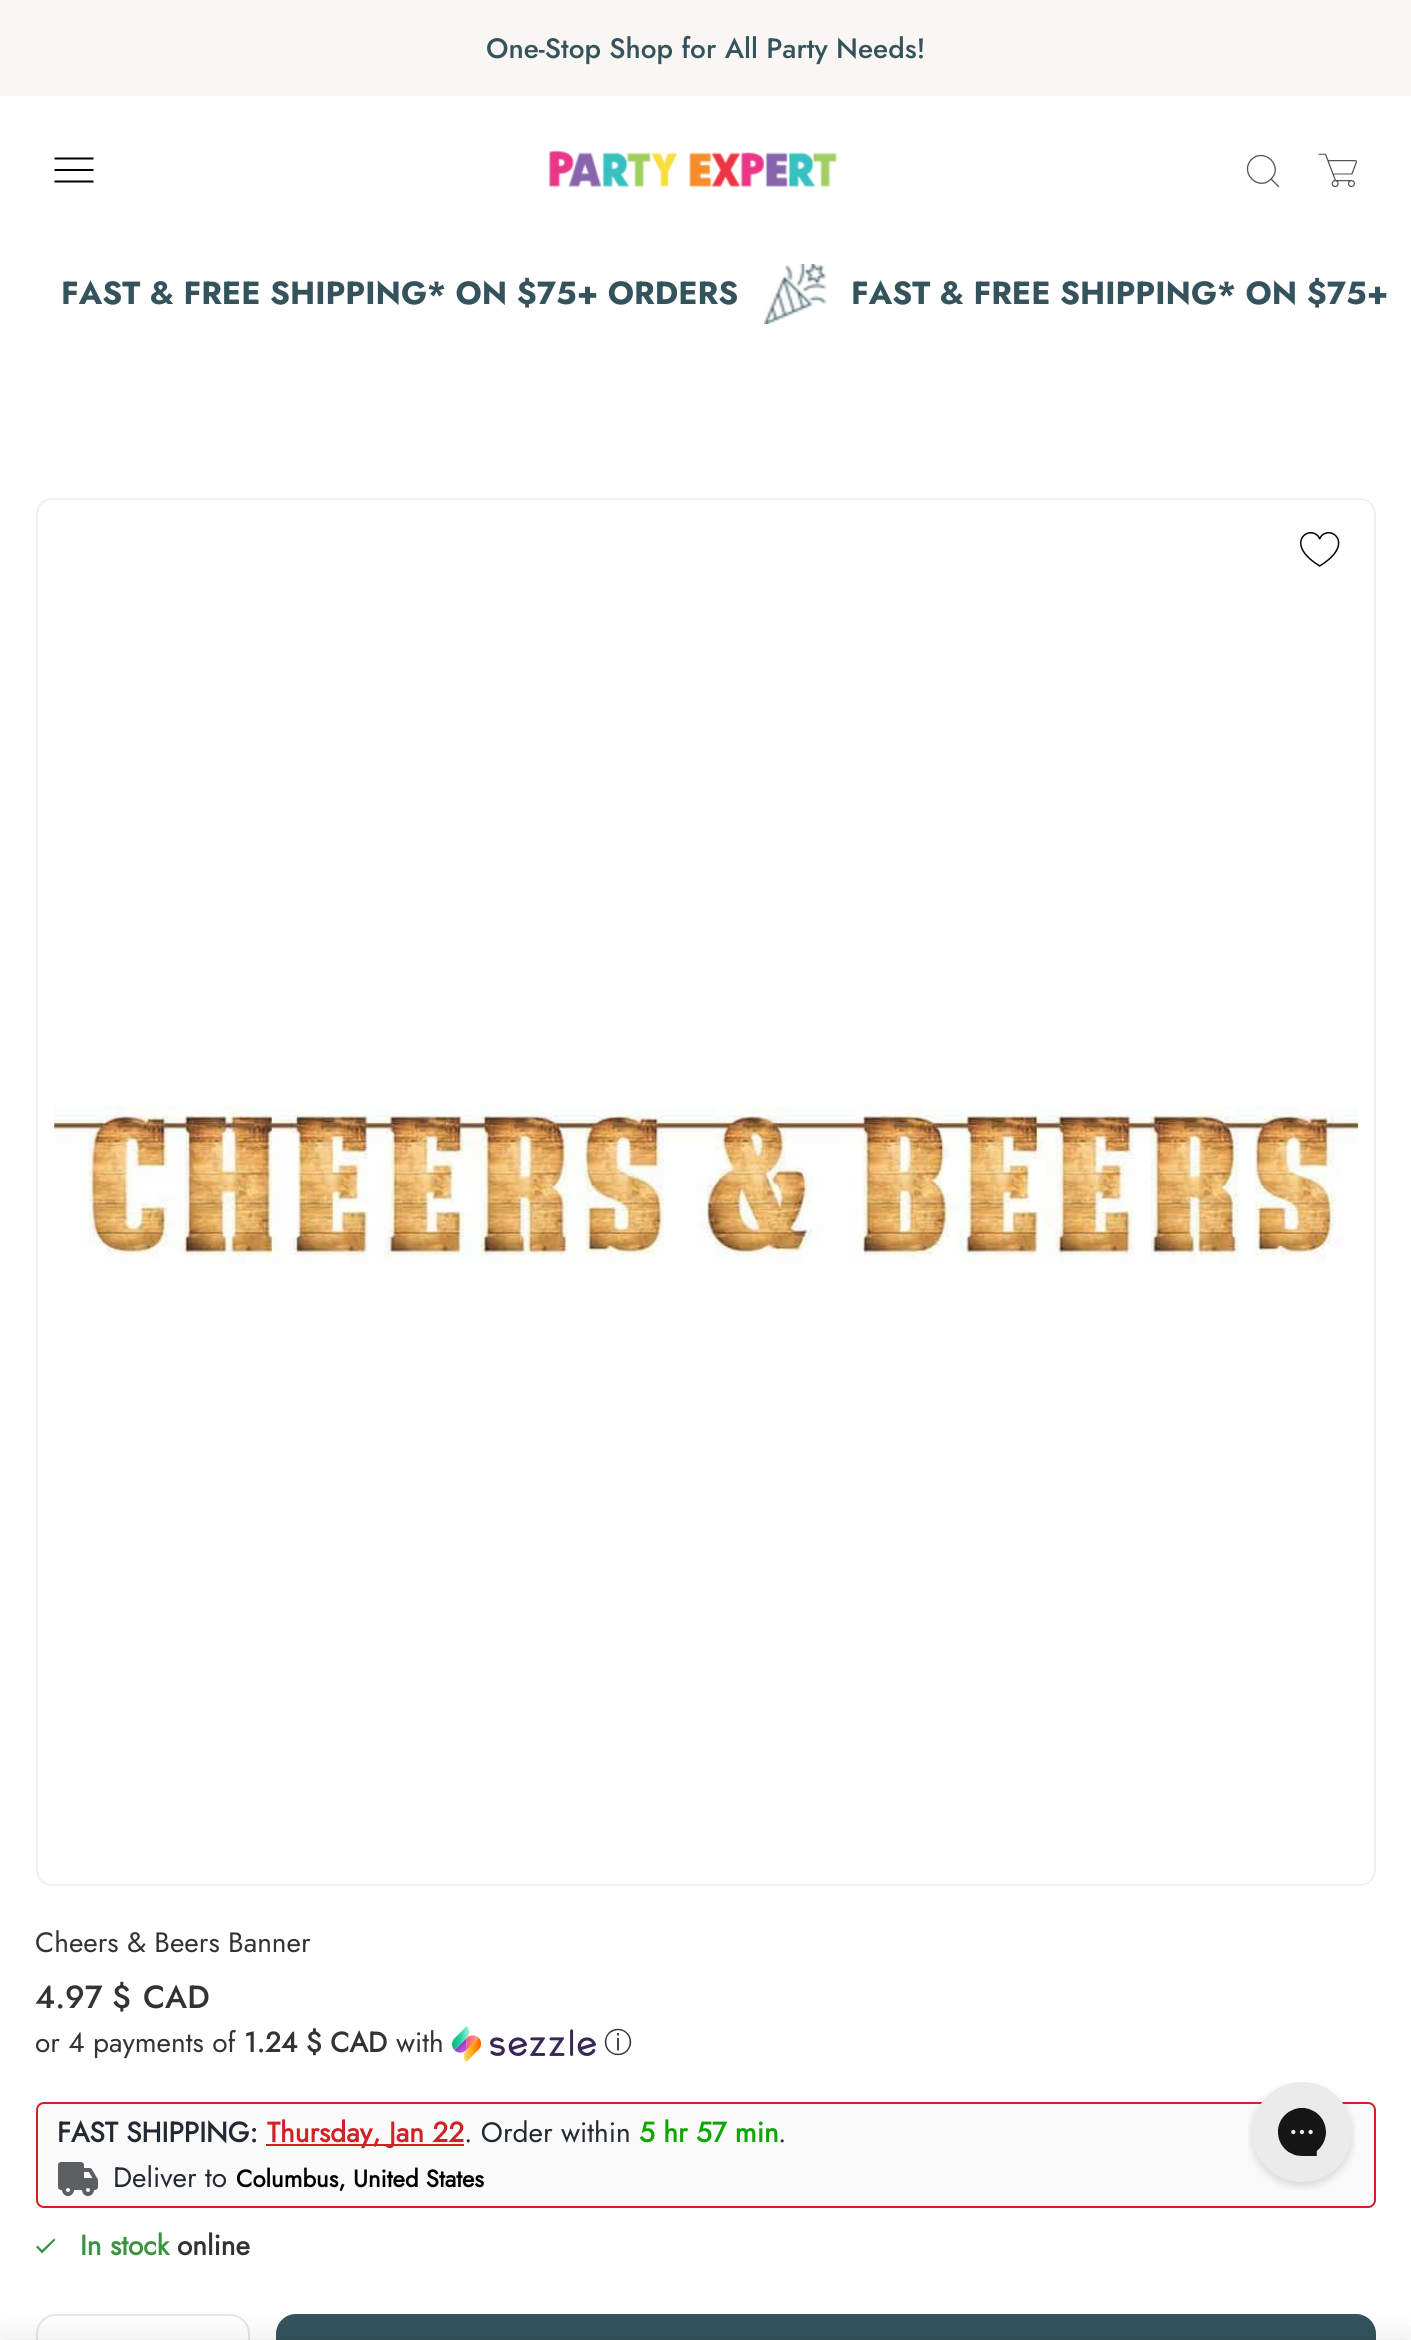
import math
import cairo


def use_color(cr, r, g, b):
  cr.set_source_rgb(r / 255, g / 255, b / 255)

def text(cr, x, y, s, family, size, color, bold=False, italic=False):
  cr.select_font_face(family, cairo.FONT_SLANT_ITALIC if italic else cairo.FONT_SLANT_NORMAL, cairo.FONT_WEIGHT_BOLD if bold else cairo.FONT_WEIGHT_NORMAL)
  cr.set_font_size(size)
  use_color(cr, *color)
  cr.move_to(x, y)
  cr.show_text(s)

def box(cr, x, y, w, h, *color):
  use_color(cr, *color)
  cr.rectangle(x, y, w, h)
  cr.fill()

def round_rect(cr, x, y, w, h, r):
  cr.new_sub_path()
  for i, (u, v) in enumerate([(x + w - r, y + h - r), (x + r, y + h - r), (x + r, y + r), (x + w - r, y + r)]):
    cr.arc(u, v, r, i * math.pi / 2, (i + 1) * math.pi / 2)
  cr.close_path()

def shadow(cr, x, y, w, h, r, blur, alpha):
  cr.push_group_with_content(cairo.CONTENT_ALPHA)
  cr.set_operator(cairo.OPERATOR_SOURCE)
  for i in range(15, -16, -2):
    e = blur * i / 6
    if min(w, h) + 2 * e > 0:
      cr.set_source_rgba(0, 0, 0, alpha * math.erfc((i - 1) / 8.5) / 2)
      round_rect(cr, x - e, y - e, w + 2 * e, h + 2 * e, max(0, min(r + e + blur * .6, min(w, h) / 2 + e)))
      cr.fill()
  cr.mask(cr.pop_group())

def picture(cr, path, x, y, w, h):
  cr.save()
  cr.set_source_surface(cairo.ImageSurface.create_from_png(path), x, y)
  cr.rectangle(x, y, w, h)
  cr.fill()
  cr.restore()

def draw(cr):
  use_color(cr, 255, 255, 255)
  cr.paint()
  box(cr, 0, 0, 1411, 96, 249, 246, 243)
  cr.new_path()
  cr.move_to(55.5, 158.5)
  cr.line_to(92.5, 158.5)
  cr.move_to(55.5, 170)
  cr.line_to(92.5, 170)
  cr.move_to(55.5, 181.5)
  cr.line_to(92.5, 181.5)
  use_color(cr, 0, 0, 0)
  cr.set_line_cap(cairo.LINE_CAP_SQUARE)
  cr.stroke()
  picture(cr, "img_01.png", 549, 150, 288, 37)
  cr.new_path()
  cr.move_to(1278.5, 186.5)
  cr.line_to(1271, 179)
  cr.move_to(1271, 179)
  cr.curve_to(1284, 166.5, 1264.5, 147, 1251.5, 159.5)
  cr.curve_to(1239, 172.5, 1258.5, 192, 1271, 179)
  cr.close_path()
  use_color(cr, 79, 85, 87)
  cr.set_line_width(1.3)
  cr.set_line_cap(cairo.LINE_CAP_ROUND)
  cr.set_line_join(cairo.LINE_JOIN_ROUND)
  cr.stroke()
  picture(cr, "img_02.png", 1318, 153, 39, 35)
  picture(cr, "img_03.png", 764, 264, 63, 60)
  round_rect(cr, 37, 499, 1338, 1386, 15)
  use_color(cr, 239, 239, 239)
  cr.set_line_width(2)
  cr.set_line_cap(cairo.LINE_CAP_BUTT)
  cr.set_line_join(cairo.LINE_JOIN_MITER)
  cr.stroke()
  picture(cr, "img_04.png", 54, 1106, 1304, 158)
  picture(cr, "img_05.png", 452, 2026, 144, 36)
  use_color(cr, 250, 250, 250)
  round_rect(cr, 37, 2103, 1338, 104, 7)
  cr.fill_preserve()
  use_color(cr, 209, 32, 38)
  cr.stroke()
  box(cr, 266, 2144, 198, 2, 209, 32, 38)
  picture(cr, "img_06.png", 58, 2162, 40, 34)
  picture(cr, "img_07.png", 1300, 532, 40, 35)
  use_color(cr, 60, 147, 66)
  cr.new_path()
  cr.move_to(42, 2250)
  cr.line_to(37.5, 2245.5)
  cr.line_to(36, 2247)
  cr.line_to(42, 2253.5)
  cr.line_to(55.5, 2240)
  cr.line_to(54, 2238.5)
  cr.close_path()
  cr.fill()
  round_rect(cr, 37, 2315, 212, 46, 19)
  use_color(cr, 231, 231, 231)
  cr.stroke()
  use_color(cr, 52, 83, 92)
  round_rect(cr, 278, 2316, 1096, 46, 18)
  cr.fill_preserve()
  cr.set_line_width(4)
  cr.stroke()
  use_color(cr, 0, 0, 0)
  shadow(cr, 0, 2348, 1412, 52, 0, 20, 0.15)
  picture(cr, "img_08.png", 1248, 2082, 108, 108)
  text(cr, 486, 58, "One-Stop Shop for All Party Needs!", "Jost Medium", 28, (52, 83, 92))
  text(cr, 61, 304, "FAST & FREE SHIPPING* ON $75+ ORDERS", "Jost", 32, (52, 83, 92), bold=True)
  text(cr, 851, 304, "FAST & FREE SHIPPING* ON $75+", "Jost", 32, (52, 83, 92), bold=True)
  text(cr, 35, 1952, "Cheers & Beers Banner", "Jost", 28, (51, 51, 51))
  text(cr, 35, 2008, "4.97 $", "Jost Medium", 32, (51, 51, 51))
  text(cr, 143, 2008, "CAD", "Jost Medium", 32, (51, 51, 51))
  text(cr, 35, 2052, "or 4 payments of", "Jost", 28, (51, 51, 51))
  text(cr, 244, 2052, "1.24 $ CAD", "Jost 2", 28, (51, 51, 51), bold=True)
  text(cr, 396, 2052, "with", "Jost", 28, (51, 51, 51))
  text(cr, 604, 2052, "ⓘ", "WenQuanYi Zen Hei Medium", 28, (51, 51, 51))
  text(cr, 57, 2142, "FAST SHIPPING:", "Jost 2", 28, (35, 41, 51), bold=True)
  text(cr, 267, 2142, "Thursday, Jan 22", "Jost 2", 28, (209, 32, 38), bold=True)
  text(cr, 464, 2142, ". Order within", "Jost", 28, (35, 41, 51))
  text(cr, 639, 2142, "5 hr 57 min", "Jost 2", 28, (15, 166, 3), bold=True)
  text(cr, 778, 2142, ".", "Jost", 28, (35, 41, 51))
  text(cr, 113, 2187, "Deliver to", "Jost", 28, (35, 41, 51))
  text(cr, 236, 2187, "Columbus, United States", "Jost 2", 24, (0, 0, 0), bold=True)
  text(cr, 80, 2255, "In stock", "Jost 2", 28, (60, 147, 66), bold=True)
  text(cr, 177, 2255, "online", "Jost 2", 28, (51, 51, 51), bold=True)


surface = cairo.ImageSurface(cairo.FORMAT_RGB24, 1411, 2340)
cr = cairo.Context(surface)
options = cairo.FontOptions()
options.set_hint_metrics(cairo.HINT_METRICS_OFF)
options.set_hint_style(cairo.HINT_STYLE_NONE)
cr.set_font_options(options)
cr.set_miter_limit(4)
draw(cr)
surface.write_to_png("out.png")
